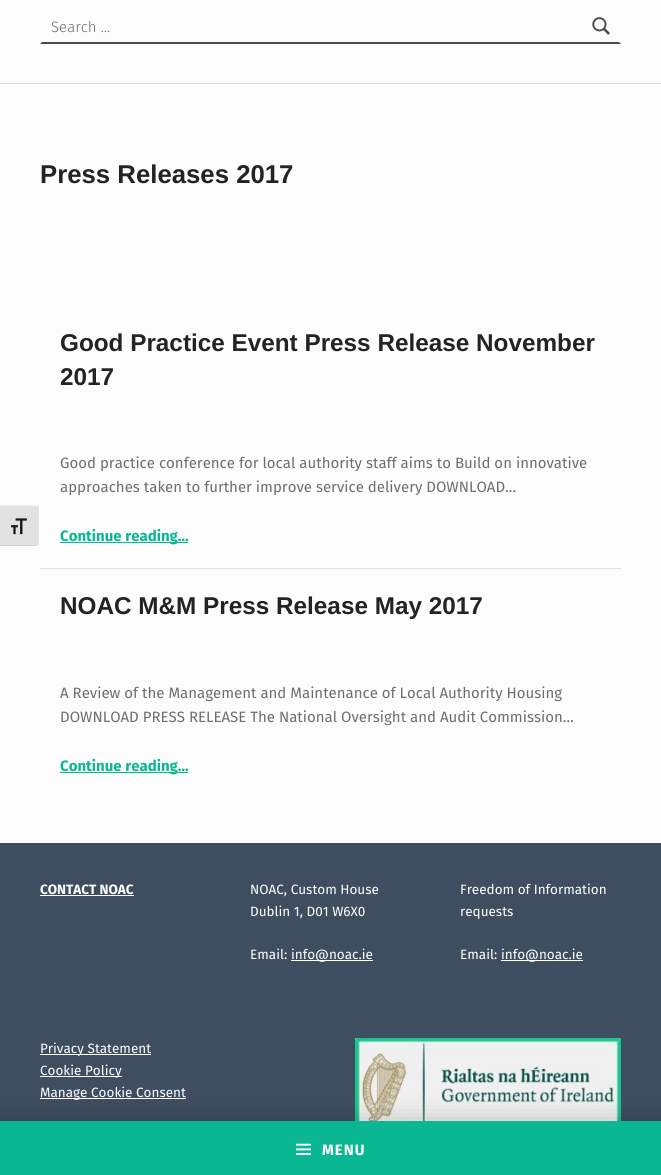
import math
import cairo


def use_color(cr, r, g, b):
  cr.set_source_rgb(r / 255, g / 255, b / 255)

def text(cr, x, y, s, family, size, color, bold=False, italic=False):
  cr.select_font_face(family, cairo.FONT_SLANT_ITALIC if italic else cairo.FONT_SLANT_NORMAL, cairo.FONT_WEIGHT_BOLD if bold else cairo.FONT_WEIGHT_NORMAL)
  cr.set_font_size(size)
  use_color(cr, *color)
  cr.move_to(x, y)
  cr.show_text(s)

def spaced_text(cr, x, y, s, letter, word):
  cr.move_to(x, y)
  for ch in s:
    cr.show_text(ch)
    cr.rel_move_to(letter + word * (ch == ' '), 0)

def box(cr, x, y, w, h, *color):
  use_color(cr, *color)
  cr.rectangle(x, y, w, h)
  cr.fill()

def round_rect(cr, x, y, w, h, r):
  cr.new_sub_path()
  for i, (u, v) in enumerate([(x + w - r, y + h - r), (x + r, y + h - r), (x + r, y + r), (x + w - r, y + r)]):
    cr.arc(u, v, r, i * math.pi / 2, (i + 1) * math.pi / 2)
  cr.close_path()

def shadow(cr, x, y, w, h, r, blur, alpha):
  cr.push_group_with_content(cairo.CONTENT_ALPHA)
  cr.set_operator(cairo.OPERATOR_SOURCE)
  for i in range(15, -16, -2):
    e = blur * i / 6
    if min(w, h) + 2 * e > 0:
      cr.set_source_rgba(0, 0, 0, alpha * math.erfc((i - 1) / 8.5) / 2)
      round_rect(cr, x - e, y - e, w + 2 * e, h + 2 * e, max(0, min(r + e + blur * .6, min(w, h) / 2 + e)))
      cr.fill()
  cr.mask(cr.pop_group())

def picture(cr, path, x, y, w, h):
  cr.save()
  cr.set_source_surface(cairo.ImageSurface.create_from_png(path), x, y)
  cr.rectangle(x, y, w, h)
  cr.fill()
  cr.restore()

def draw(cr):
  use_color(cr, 253, 252, 252)
  cr.paint()
  use_color(cr, 226, 226, 226)
  cr.new_path()
  cr.move_to(0, 505)
  cr.line_to(39, 505)
  cr.line_to(39, 542)
  cr.curve_to(39, 544, 37, 546, 35, 546)
  cr.line_to(0, 546)
  cr.close_path()
  cr.fill()
  box(cr, 0, 505, 39, 1, 245, 245, 245)
  use_color(cr, 210, 210, 210)
  cr.new_path()
  cr.move_to(0, 545)
  cr.line_to(0, 546)
  cr.line_to(35, 546)
  cr.curve_to(37, 546, 39, 544, 39, 542)
  cr.curve_to(39, 544, 37, 545, 35, 545)
  cr.close_path()
  cr.fill()
  picture(cr, "img_01.png", 11, 518, 16, 17)
  box(cr, 0, 83, 661, 1, 219, 218, 219)
  use_color(cr, 76, 76, 77)
  cr.new_path()
  cr.move_to(621, 44)
  cr.line_to(40, 44)
  cr.line_to(42, 42)
  cr.line_to(619, 42)
  cr.close_path()
  cr.fill()
  picture(cr, "img_02.png", 592, 17, 18, 18)
  box(cr, 0, 843, 661, 278, 62, 78, 96)
  box(cr, 40, 1098, 146, 1, 255, 255, 255)
  picture(cr, "img_04.png", 355, 1038, 266, 83)
  use_color(cr, 0, 0, 0)
  shadow(cr, 0, 1119, 661, 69, 0, 12, 0.2)
  box(cr, 0, 1121, 661, 54, 10, 183, 147)
  picture(cr, "img_03.png", 296, 1143, 15, 12)
  box(cr, 60, 542, 117, 1, 10, 183, 147)
  box(cr, 177, 542, 11, 1, 10, 183, 147)
  box(cr, 40, 568, 581, 1, 225, 224, 224)
  box(cr, 60, 772, 117, 1, 10, 183, 147)
  box(cr, 177, 772, 11, 1, 10, 183, 147)
  box(cr, 40, 895, 94, 1, 255, 255, 255)
  box(cr, 291, 960, 82, 1, 255, 255, 255)
  box(cr, 501, 960, 82, 1, 255, 255, 255)
  box(cr, 40, 1054, 111, 1, 255, 255, 255)
  box(cr, 40, 1076, 82, 1, 255, 255, 255)
  text(cr, 51, 32, "Search …", "Fira Sans Light", 15, (111, 110, 110))
  cr.select_font_face("Fira Sans", cairo.FONT_SLANT_NORMAL, cairo.FONT_WEIGHT_BOLD)
  use_color(cr, 255, 255, 255)
  spaced_text(cr, 322, 1155, "MENU", 1, 0)
  text(cr, 40, 183, "Press Releases 2017", "Liberation Sans", 25.75, (36, 35, 35), bold=True)
  text(cr, 60, 351, "Good Practice Event Press Release November", "Liberation Sans", 24.3, (36, 35, 35), bold=True)
  text(cr, 60, 385, "2017", "Liberation Sans", 24.3, (36, 35, 35), bold=True)
  text(cr, 60, 468, "Good practice conference for local authority staff aims to Build on innovative", "Fira Sans", 15, (111, 110, 110))
  text(cr, 60, 492, "approaches taken to further improve service delivery DOWNLOAD…", "Fira Sans", 15, (111, 110, 110))
  text(cr, 60, 541, "Continue reading…", "Fira Sans", 15, (10, 183, 147), bold=True)
  text(cr, 60, 614, "NOAC M&M Press Release May 2017", "Liberation Sans", 24.3, (36, 35, 35), bold=True)
  text(cr, 60, 698, "A Review of the Management and Maintenance of Local Authority Housing", "Fira Sans", 15, (111, 110, 110))
  text(cr, 60, 722, "DOWNLOAD PRESS RELEASE The National Oversight and Audit Commission…", "Fira Sans", 15, (111, 110, 110))
  text(cr, 60, 771, "Continue reading…", "Fira Sans", 15, (10, 183, 147), bold=True)
  text(cr, 40, 894, "CONTACT NOAC", "Fira Sans", 13.5, (255, 255, 255), bold=True)
  text(cr, 250, 894, "NOAC, Custom House", "Fira Sans", 13.5, (255, 255, 255))
  text(cr, 250, 916, "Dublin 1, D01 W6X0", "Fira Sans", 13.5, (255, 255, 255))
  text(cr, 250, 959, "Email:", "Fira Sans", 13.5, (255, 255, 255))
  text(cr, 291, 959, "info@noac.ie", "Fira Sans", 13.5, (255, 255, 255))
  text(cr, 460, 894, "Freedom of Information", "Fira Sans", 13.5, (255, 255, 255))
  text(cr, 460, 916, "requests", "Fira Sans", 13.5, (255, 255, 255))
  text(cr, 460, 959, "Email:", "Fira Sans", 13.5, (255, 255, 255))
  text(cr, 501, 959, "info@noac.ie", "Fira Sans", 13.5, (255, 255, 255))
  text(cr, 40, 1053, "Privacy Statement", "Fira Sans", 13.5, (255, 255, 255))
  text(cr, 40, 1075, "Cookie Policy", "Fira Sans", 13.5, (255, 255, 255))
  text(cr, 40, 1097, "Manage Cookie Consent", "Fira Sans", 13.5, (255, 255, 255))


surface = cairo.ImageSurface(cairo.FORMAT_RGB24, 661, 1175)
cr = cairo.Context(surface)
options = cairo.FontOptions()
options.set_hint_metrics(cairo.HINT_METRICS_OFF)
options.set_hint_style(cairo.HINT_STYLE_NONE)
cr.set_font_options(options)
cr.set_miter_limit(4)
draw(cr)
surface.write_to_png("out.png")
